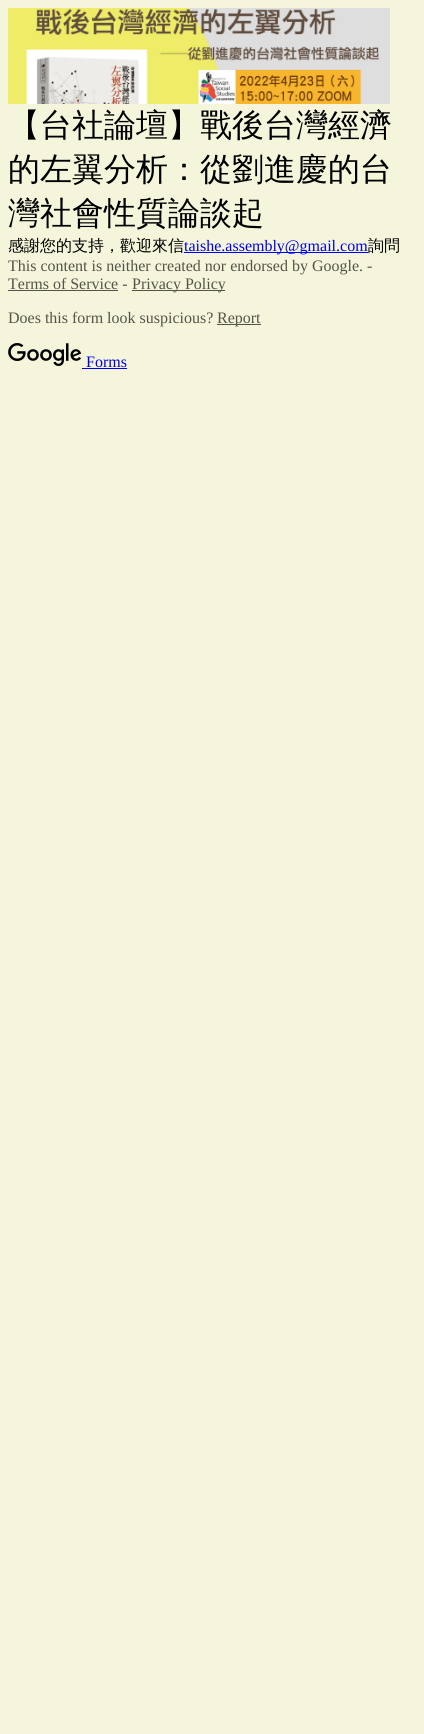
import math
import cairo


def use_color(cr, r, g, b):
  cr.set_source_rgb(r / 255, g / 255, b / 255)

def text(cr, x, y, s, family, size, color, bold=False, italic=False):
  cr.select_font_face(family, cairo.FONT_SLANT_ITALIC if italic else cairo.FONT_SLANT_NORMAL, cairo.FONT_WEIGHT_BOLD if bold else cairo.FONT_WEIGHT_NORMAL)
  cr.set_font_size(size)
  use_color(cr, *color)
  cr.move_to(x, y)
  cr.show_text(s)

def box(cr, x, y, w, h, *color):
  use_color(cr, *color)
  cr.rectangle(x, y, w, h)
  cr.fill()

def picture(cr, path, x, y, w, h):
  cr.save()
  cr.set_source_surface(cairo.ImageSurface.create_from_png(path), x, y)
  cr.rectangle(x, y, w, h)
  cr.fill()
  cr.restore()

def draw(cr):
  use_color(cr, 245, 245, 219)
  cr.paint()
  picture(cr, "img_01.png", 8, 8, 382, 96)
  box(cr, 184, 252, 184, 1, 0, 0, 238)
  box(cr, 8, 290, 110, 1, 83, 83, 74)
  box(cr, 132, 290, 93, 1, 83, 83, 74)
  box(cr, 217, 324, 44, 1, 83, 83, 74)
  picture(cr, "img_02.png", 8, 343, 74, 23)
  box(cr, 82, 368, 45, 1, 0, 0, 238)
  text(cr, 8, 136, "【台社論壇】戰後台灣經濟", "WenQuanYi Zen Hei Medium", 32, (0, 0, 0))
  text(cr, 8, 180, "的左翼分析：從劉進慶的台", "WenQuanYi Zen Hei Medium", 32, (0, 0, 0))
  text(cr, 8, 224, "灣社會性質論談起", "WenQuanYi Zen Hei Medium", 32, (0, 0, 0))
  text(cr, 8, 251, "感謝您的支持，歡迎來信", "WenQuanYi Zen Hei Medium", 16, (0, 0, 0))
  text(cr, 184, 251, "taishe.assembly@gmail.com", "Liberation Serif", 16, (0, 0, 238))
  text(cr, 368, 251, "詢問", "WenQuanYi Zen Hei Medium", 16, (0, 0, 0))
  text(cr, 8, 271, "This content is neither created nor endorsed by Google. -", "Liberation Serif", 16, (83, 83, 74))
  text(cr, 8, 289, "Terms of Service -", "Liberation Serif", 16, (83, 83, 74))
  text(cr, 132, 289, "Privacy Policy", "Liberation Serif", 16, (83, 83, 74))
  text(cr, 8, 323, "Does this form look suspicious?", "Liberation Serif", 16, (83, 83, 74))
  text(cr, 217, 323, "Report", "Liberation Serif", 16, (83, 83, 74))
  text(cr, 86, 367, "Forms", "Liberation Serif", 16, (0, 0, 238))


surface = cairo.ImageSurface(cairo.FORMAT_RGB24, 424, 1734)
cr = cairo.Context(surface)
options = cairo.FontOptions()
options.set_hint_metrics(cairo.HINT_METRICS_OFF)
options.set_hint_style(cairo.HINT_STYLE_NONE)
cr.set_font_options(options)
cr.set_miter_limit(4)
draw(cr)
surface.write_to_png("out.png")
